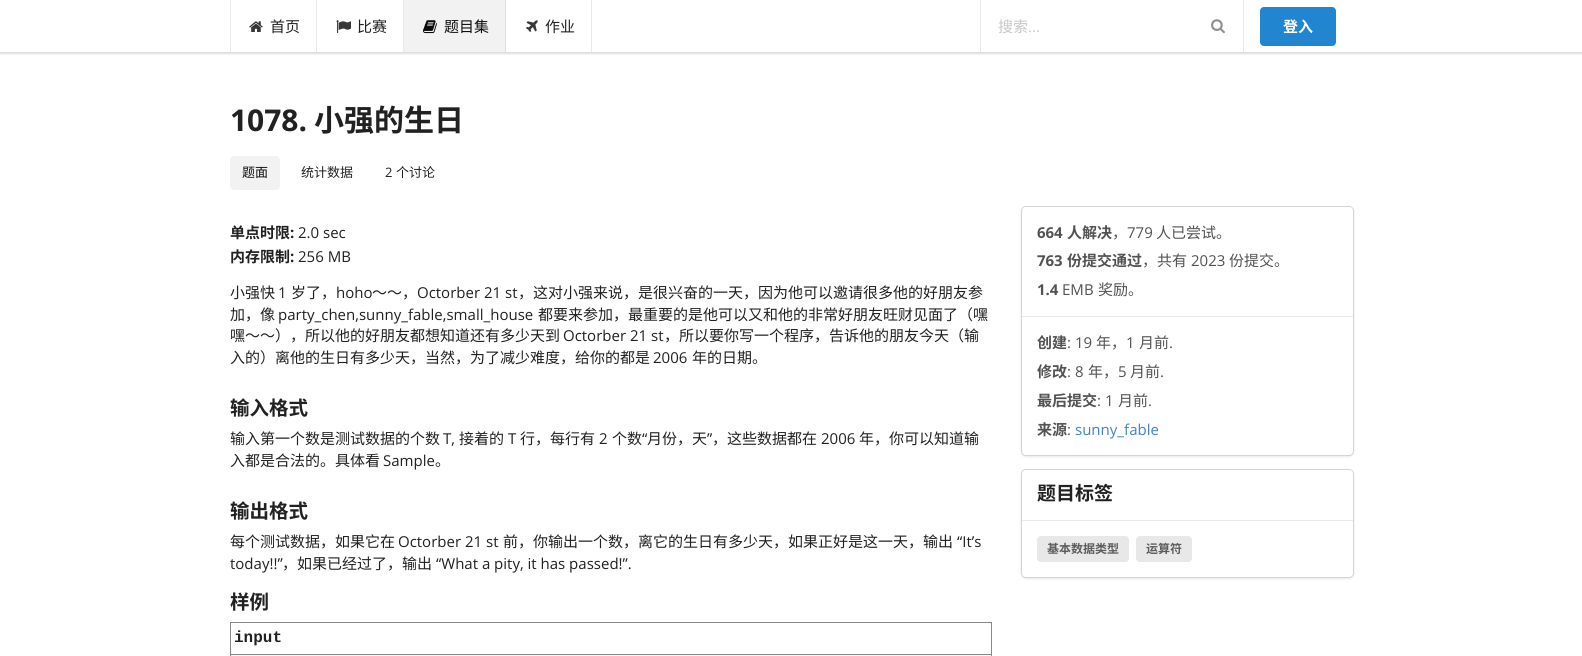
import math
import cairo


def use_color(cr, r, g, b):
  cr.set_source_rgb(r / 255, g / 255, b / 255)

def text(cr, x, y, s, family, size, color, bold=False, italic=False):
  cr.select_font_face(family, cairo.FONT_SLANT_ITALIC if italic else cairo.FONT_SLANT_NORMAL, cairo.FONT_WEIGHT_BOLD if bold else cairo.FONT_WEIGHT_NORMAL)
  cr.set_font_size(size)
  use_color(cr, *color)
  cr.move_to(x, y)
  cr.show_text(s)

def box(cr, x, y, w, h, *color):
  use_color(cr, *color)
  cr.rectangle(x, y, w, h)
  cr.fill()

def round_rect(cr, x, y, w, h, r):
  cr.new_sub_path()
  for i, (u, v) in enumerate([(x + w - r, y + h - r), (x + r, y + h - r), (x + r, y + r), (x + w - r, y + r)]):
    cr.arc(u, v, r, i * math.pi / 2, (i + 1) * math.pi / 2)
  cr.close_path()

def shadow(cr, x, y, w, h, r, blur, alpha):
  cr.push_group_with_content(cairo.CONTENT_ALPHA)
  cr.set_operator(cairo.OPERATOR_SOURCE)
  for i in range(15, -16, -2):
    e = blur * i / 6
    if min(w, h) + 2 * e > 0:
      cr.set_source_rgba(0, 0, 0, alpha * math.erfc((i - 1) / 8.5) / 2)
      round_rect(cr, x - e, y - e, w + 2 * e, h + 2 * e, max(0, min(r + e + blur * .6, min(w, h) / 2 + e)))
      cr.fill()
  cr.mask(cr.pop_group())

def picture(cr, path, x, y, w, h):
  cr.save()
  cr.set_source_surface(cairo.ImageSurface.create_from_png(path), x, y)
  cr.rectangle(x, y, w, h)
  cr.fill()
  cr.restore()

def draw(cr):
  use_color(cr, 255, 255, 255)
  cr.paint()
  cr.save()
  cr.rectangle(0, 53, 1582, 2)
  cr.clip()
  use_color(cr, 34, 36, 38)
  shadow(cr, 0, 1, 1582, 53, 0, 1, 0.15)
  cr.restore()
  box(cr, 0, 52, 1582, 1, 222, 222, 222)
  box(cr, 230, 0, 1, 52, 233, 233, 233)
  picture(cr, "img_01.png", 249, 21, 14, 11)
  box(cr, 316, 0, 1, 52, 233, 233, 233)
  picture(cr, "img_02.png", 336, 20, 15, 14)
  box(cr, 403, 0, 1, 52, 233, 233, 233)
  box(cr, 404, 0, 101, 52, 242, 242, 242)
  picture(cr, "img_03.png", 423, 20, 14, 14)
  box(cr, 505, 0, 1, 52, 221, 221, 222)
  picture(cr, "img_04.png", 526, 20, 12, 12)
  box(cr, 591, 0, 1, 52, 233, 233, 233)
  box(cr, 980, 0, 1, 52, 233, 233, 233)
  picture(cr, "img_05.png", 1211, 19, 14, 15)
  box(cr, 1243, 0, 1, 52, 233, 233, 233)
  use_color(cr, 33, 133, 208)
  round_rect(cr, 1260, 7, 76, 39, 4)
  cr.fill()
  use_color(cr, 242, 242, 242)
  round_rect(cr, 230, 156, 50, 34, 4)
  cr.fill()
  cr.rectangle(230.5, 622.5, 761, 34)
  use_color(cr, 136, 136, 136)
  cr.set_line_width(1)
  cr.stroke()
  box(cr, 231, 654, 760, 1, 136, 136, 136)
  box(cr, 231, 655, 760, 1, 247, 247, 247)
  round_rect(cr, 1021.5, 206.5, 332, 249, 4.5)
  use_color(cr, 212, 212, 213)
  cr.stroke()
  use_color(cr, 212, 212, 213)
  shadow(cr, 1022, 208, 331, 248, 4, 1.5, 1)
  use_color(cr, 255, 255, 255)
  round_rect(cr, 1022, 207, 331, 248, 4)
  cr.fill()
  box(cr, 1022, 316, 331, 1, 233, 233, 233)
  round_rect(cr, 1021.5, 469.5, 332, 108, 4.5)
  use_color(cr, 212, 212, 213)
  cr.stroke()
  use_color(cr, 212, 212, 213)
  shadow(cr, 1022, 471, 331, 107, 4, 1.5, 1)
  use_color(cr, 255, 255, 255)
  round_rect(cr, 1022, 470, 331, 107, 4)
  cr.fill()
  box(cr, 1022, 520, 331, 1, 233, 233, 233)
  use_color(cr, 232, 232, 232)
  round_rect(cr, 1037, 536, 92, 26, 4)
  cr.fill()
  round_rect(cr, 1136, 536, 56, 26, 4)
  cr.fill()
  text(cr, 270, 32, "首页", "Noto Sans CJK SC", 15, (33, 33, 33))
  text(cr, 357, 32, "比赛", "Noto Sans CJK SC", 15, (33, 33, 33))
  text(cr, 444, 32, "题目集", "Noto Sans CJK SC", 15, (12, 12, 12))
  text(cr, 545, 32, "作业", "Noto Sans CJK SC", 15, (33, 33, 33))
  text(cr, 998, 32, "搜索", "Noto Sans CJK SC", 15, (199, 199, 199))
  text(cr, 1028, 32, "...", "Open Sans", 15, (199, 199, 199))
  text(cr, 1283, 32, "登入", "Noto Sans CJK SC", 15, (255, 255, 255), bold=True)
  text(cr, 230, 131, "1078.", "Open Sans", 30, (33, 33, 33), bold=True)
  text(cr, 314, 131, "小强的生日", "Noto Sans CJK SC", 30, (33, 33, 33), bold=True)
  text(cr, 242, 177, "题面", "Noto Sans CJK SC", 13, (12, 12, 12))
  text(cr, 301, 177, "统计数据", "Noto Sans CJK SC", 13, (33, 33, 33))
  text(cr, 385, 177, "2", "Open Sans", 13, (33, 33, 33))
  text(cr, 396, 177, "个讨论", "Noto Sans CJK SC", 13, (33, 33, 33))
  text(cr, 230, 238, "单点时限", "Noto Sans CJK SC", 15, (33, 33, 33), bold=True)
  text(cr, 290, 238, ":", "Open Sans", 15, (33, 33, 33), bold=True)
  text(cr, 298, 238, "2.0 sec", "Open Sans", 15, (33, 33, 33))
  text(cr, 230, 262, "内存限制", "Noto Sans CJK SC", 15, (33, 33, 33), bold=True)
  text(cr, 290, 262, ":", "Open Sans", 15, (33, 33, 33), bold=True)
  text(cr, 298, 262, "256 MB", "Open Sans", 15, (33, 33, 33))
  text(cr, 230, 298, "小强快", "Noto Sans CJK SC", 15, (33, 33, 33))
  text(cr, 278, 298, "1", "Open Sans", 15, (33, 33, 33))
  text(cr, 291, 298, "岁了，", "Noto Sans CJK SC", 15, (33, 33, 33))
  text(cr, 336, 298, "hoho", "Open Sans", 15, (33, 33, 33))
  text(cr, 372, 298, "～～，", "Noto Sans CJK SC", 15, (33, 33, 33))
  text(cr, 417, 298, "Octorber 21 st", "Open Sans", 15, (33, 33, 33))
  text(cr, 518, 298, "，这对小强来说，是很兴奋的一天，因为他可以邀请很多他的好朋友参", "Noto Sans CJK SC", 15, (33, 33, 33))
  text(cr, 230, 320, "加，像", "Noto Sans CJK SC", 15, (33, 33, 33))
  text(cr, 278, 320, "party_chen,sunny_fable,small_house", "Open Sans", 15, (33, 33, 33))
  text(cr, 538, 320, "都要来参加，最重要的是他可以又和他的非常好朋友旺财见面了（嘿", "Noto Sans CJK SC", 15, (33, 33, 33))
  text(cr, 230, 341, "嘿～～），所以他的好朋友都想知道还有多少天到", "Noto Sans CJK SC", 15, (33, 33, 33))
  text(cr, 563, 341, "Octorber 21 st", "Open Sans", 15, (33, 33, 33))
  text(cr, 664, 341, "，所以要你写一个程序，告诉他的朋友今天（输", "Noto Sans CJK SC", 15, (33, 33, 33))
  text(cr, 230, 363, "入的）离他的生日有多少天，当然，为了减少难度，给你的都是", "Noto Sans CJK SC", 15, (33, 33, 33))
  text(cr, 653, 363, "2006", "Open Sans", 15, (33, 33, 33))
  text(cr, 692, 363, "年的日期。", "Noto Sans CJK SC", 15, (33, 33, 33))
  text(cr, 230, 415, "输入格式", "Noto Sans CJK SC", 19.5, (33, 33, 33), bold=True)
  text(cr, 230, 444, "输入第一个数是测试数据的个数", "Noto Sans CJK SC", 15, (33, 33, 33))
  text(cr, 443, 444, "T,", "Open Sans", 15, (33, 33, 33))
  text(cr, 459, 444, "接着的", "Noto Sans CJK SC", 15, (33, 33, 33))
  text(cr, 508, 444, "T", "Open Sans", 15, (33, 33, 33))
  text(cr, 520, 444, "行，每行有", "Noto Sans CJK SC", 15, (33, 33, 33))
  text(cr, 599, 444, "2", "Open Sans", 15, (33, 33, 33))
  text(cr, 612, 444, "个数", "Noto Sans CJK SC", 15, (33, 33, 33))
  text(cr, 642, 444, "“", "Open Sans", 15, (33, 33, 33))
  text(cr, 647, 444, "月份，天", "Noto Sans CJK SC", 15, (33, 33, 33))
  text(cr, 707, 444, "”", "Open Sans", 15, (33, 33, 33))
  text(cr, 712, 444, "，这些数据都在", "Noto Sans CJK SC", 15, (33, 33, 33))
  text(cr, 821, 444, "2006", "Open Sans", 15, (33, 33, 33))
  text(cr, 859, 444, "年，你可以知道输", "Noto Sans CJK SC", 15, (33, 33, 33))
  text(cr, 230, 466, "入都是合法的。具体看", "Noto Sans CJK SC", 15, (33, 33, 33))
  text(cr, 383, 466, "Sample", "Open Sans", 15, (33, 33, 33))
  text(cr, 435, 466, "。", "Noto Sans CJK SC", 15, (33, 33, 33))
  text(cr, 230, 518, "输出格式", "Noto Sans CJK SC", 19.5, (33, 33, 33), bold=True)
  text(cr, 230, 547, "每个测试数据，如果它在", "Noto Sans CJK SC", 15, (33, 33, 33))
  text(cr, 398, 547, "Octorber 21 st", "Open Sans", 15, (33, 33, 33))
  text(cr, 503, 547, "前，你输出一个数，离它的生日有多少天，如果正好是这一天，输出", "Noto Sans CJK SC", 15, (33, 33, 33))
  text(cr, 957, 547, "“It’s", "Open Sans", 15, (33, 33, 33))
  text(cr, 230, 569, "today!!”", "Open Sans", 15, (33, 33, 33))
  text(cr, 282, 569, "，如果已经过了，输出", "Noto Sans CJK SC", 15, (33, 33, 33))
  text(cr, 436, 569, "“What a pity, it has passed!”.", "Open Sans", 15, (33, 33, 33))
  text(cr, 230, 609, "样例", "Noto Sans CJK SC", 19.5, (33, 33, 33), bold=True)
  text(cr, 234, 642, "input", "Liberation Mono", 16, (33, 33, 33), bold=True)
  text(cr, 1037, 238, "664", "Open Sans", 15, (82, 82, 82), bold=True)
  text(cr, 1067, 238, "人解决", "Noto Sans CJK SC", 15, (82, 82, 82), bold=True)
  text(cr, 1112, 238, "，", "Noto Sans CJK SC", 15, (82, 82, 82))
  text(cr, 1127, 238, "779", "Open Sans", 15, (82, 82, 82))
  text(cr, 1156, 238, "人已尝试。", "Noto Sans CJK SC", 15, (82, 82, 82))
  text(cr, 1037, 266, "763", "Open Sans", 15, (82, 82, 82), bold=True)
  text(cr, 1067, 266, "份提交通过", "Noto Sans CJK SC", 15, (82, 82, 82), bold=True)
  text(cr, 1142, 266, "，共有", "Noto Sans CJK SC", 15, (82, 82, 82))
  text(cr, 1191, 266, "2023", "Open Sans", 15, (82, 82, 82))
  text(cr, 1229, 266, "份提交。", "Noto Sans CJK SC", 15, (82, 82, 82))
  text(cr, 1037, 295, "1.4", "Open Sans", 15, (82, 82, 82), bold=True)
  text(cr, 1062, 295, "EMB", "Open Sans", 15, (82, 82, 82))
  text(cr, 1098, 295, "奖励。", "Noto Sans CJK SC", 15, (82, 82, 82))
  text(cr, 1037, 348, "创建", "Noto Sans CJK SC", 15, (82, 82, 82), bold=True)
  text(cr, 1067, 348, ": 19", "Open Sans", 15, (82, 82, 82))
  text(cr, 1096, 348, "年，", "Noto Sans CJK SC", 15, (82, 82, 82))
  text(cr, 1126, 348, "1", "Open Sans", 15, (82, 82, 82))
  text(cr, 1139, 348, "月前", "Noto Sans CJK SC", 15, (82, 82, 82))
  text(cr, 1169, 348, ".", "Open Sans", 15, (82, 82, 82))
  text(cr, 1037, 377, "修改", "Noto Sans CJK SC", 15, (82, 82, 82), bold=True)
  text(cr, 1067, 377, ": 8", "Open Sans", 15, (82, 82, 82))
  text(cr, 1088, 377, "年，", "Noto Sans CJK SC", 15, (82, 82, 82))
  text(cr, 1118, 377, "5", "Open Sans", 15, (82, 82, 82))
  text(cr, 1130, 377, "月前", "Noto Sans CJK SC", 15, (82, 82, 82))
  text(cr, 1160, 377, ".", "Open Sans", 15, (82, 82, 82))
  text(cr, 1037, 406, "最后提交", "Noto Sans CJK SC", 15, (82, 82, 82), bold=True)
  text(cr, 1097, 406, ": 1", "Open Sans", 15, (82, 82, 82))
  text(cr, 1118, 406, "月前", "Noto Sans CJK SC", 15, (82, 82, 82))
  text(cr, 1148, 406, ".", "Open Sans", 15, (82, 82, 82))
  text(cr, 1037, 435, "来源", "Noto Sans CJK SC", 15, (82, 82, 82), bold=True)
  text(cr, 1067, 435, ":", "Open Sans", 15, (82, 82, 82))
  text(cr, 1075, 435, "sunny_fable", "Open Sans", 15, (65, 131, 196))
  text(cr, 1037, 500, "题目标签", "Noto Sans CJK SC", 19, (33, 33, 33), bold=True)
  text(cr, 1047, 553, "基本数据类型", "Noto Sans CJK SC", 12, (93, 93, 93), bold=True)
  text(cr, 1146, 553, "运算符", "Noto Sans CJK SC", 12, (93, 93, 93), bold=True)


surface = cairo.ImageSurface(cairo.FORMAT_RGB24, 1582, 656)
cr = cairo.Context(surface)
options = cairo.FontOptions()
options.set_hint_metrics(cairo.HINT_METRICS_OFF)
options.set_hint_style(cairo.HINT_STYLE_NONE)
cr.set_font_options(options)
cr.set_miter_limit(4)
draw(cr)
surface.write_to_png("out.png")
